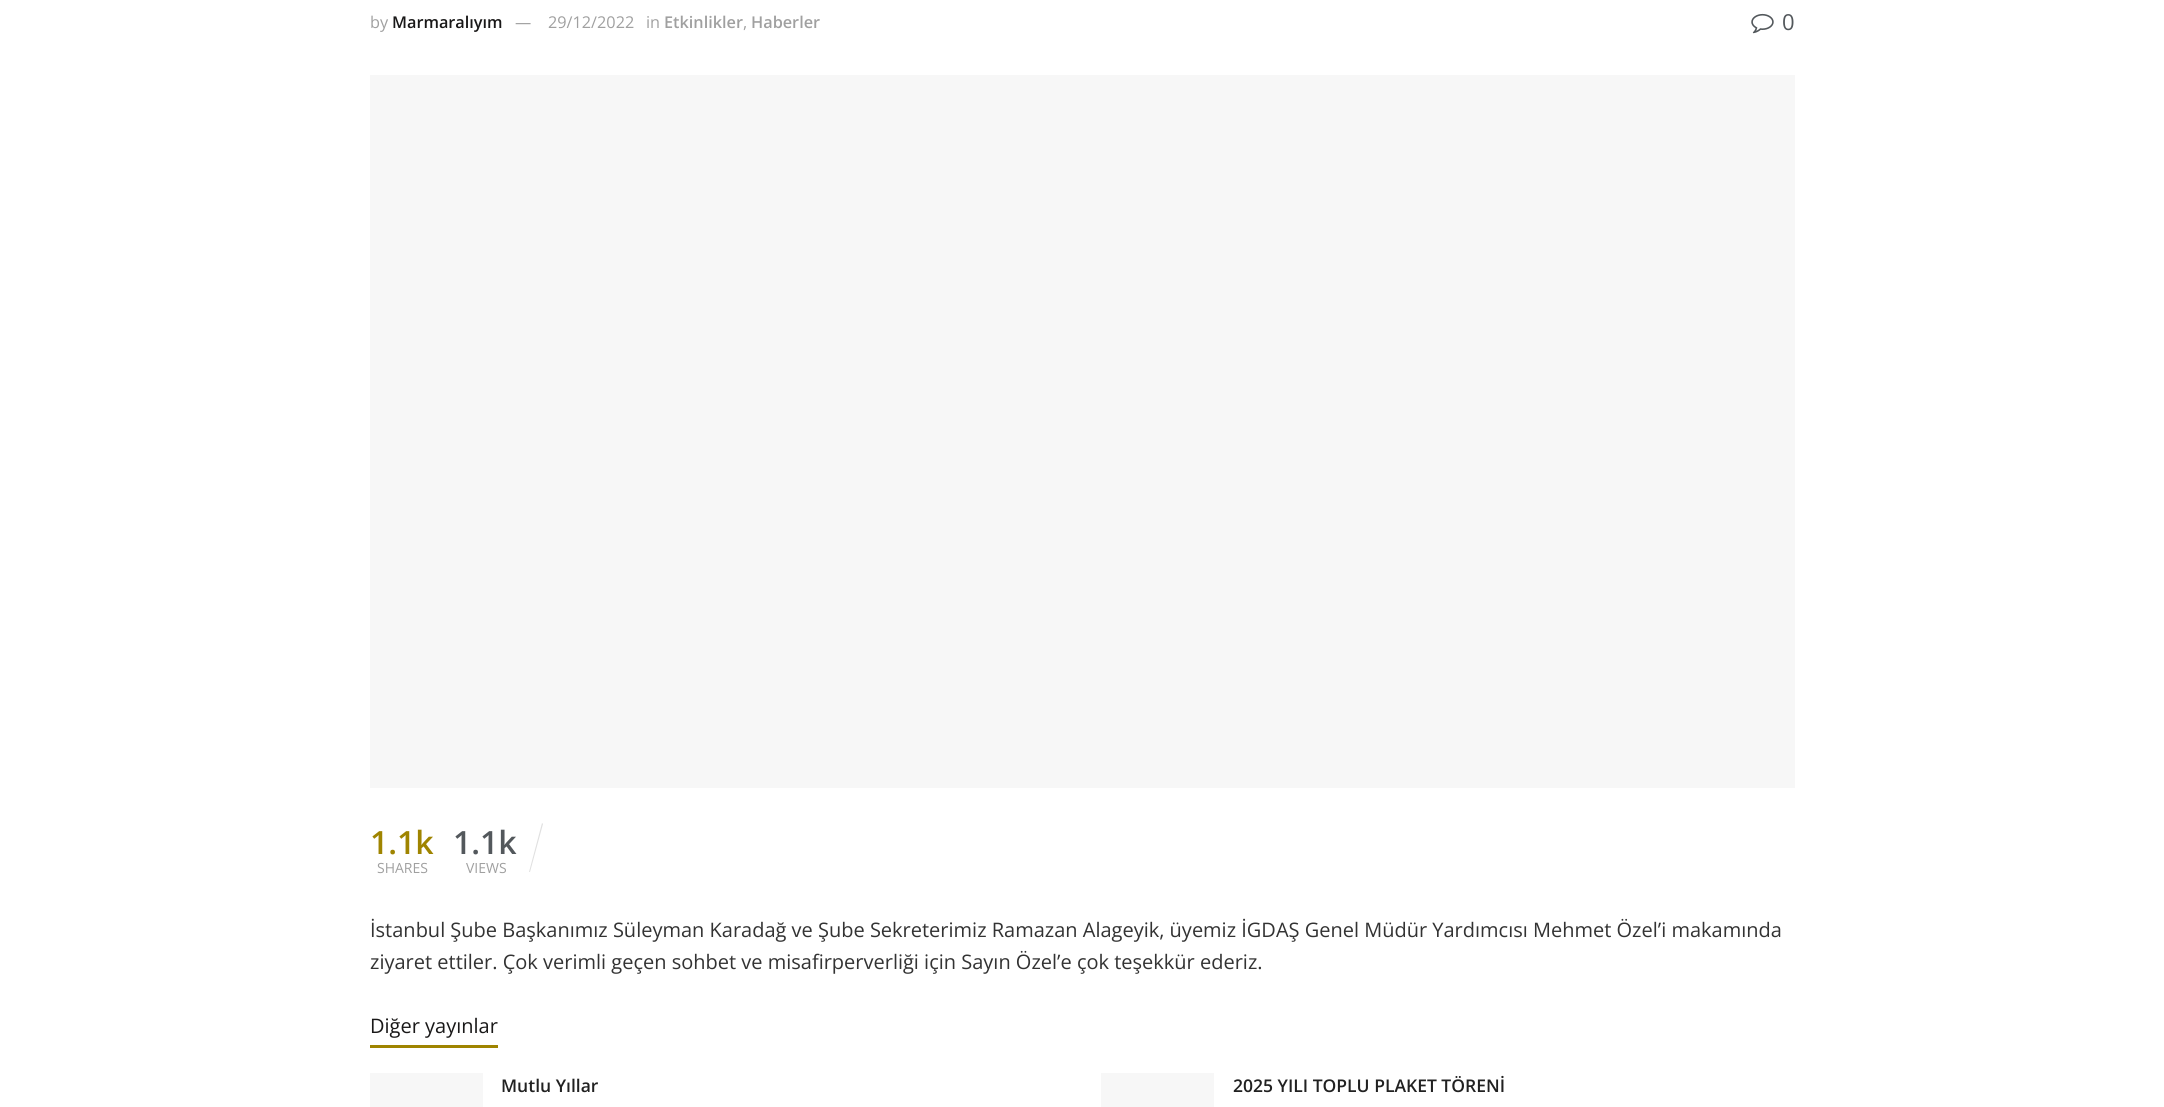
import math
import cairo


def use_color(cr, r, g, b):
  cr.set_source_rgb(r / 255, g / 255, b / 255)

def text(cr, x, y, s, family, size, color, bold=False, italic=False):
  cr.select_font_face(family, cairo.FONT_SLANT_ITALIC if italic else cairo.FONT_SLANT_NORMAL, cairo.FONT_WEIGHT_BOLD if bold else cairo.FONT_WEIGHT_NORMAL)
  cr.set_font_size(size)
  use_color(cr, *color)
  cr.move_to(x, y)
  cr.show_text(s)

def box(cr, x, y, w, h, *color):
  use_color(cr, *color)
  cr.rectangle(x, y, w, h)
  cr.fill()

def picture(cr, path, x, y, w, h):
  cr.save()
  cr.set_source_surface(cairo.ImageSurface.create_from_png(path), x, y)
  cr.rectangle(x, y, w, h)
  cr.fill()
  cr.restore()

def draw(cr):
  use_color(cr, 255, 255, 255)
  cr.paint()
  picture(cr, "img_01.png", 1751, 13, 23, 21)
  box(cr, 370, 75, 1425, 713, 247, 247, 247)
  use_color(cr, 224, 224, 224)
  cr.new_path()
  cr.move_to(542, 823)
  cr.line_to(543, 824)
  cr.line_to(530, 872)
  cr.line_to(529, 872)
  cr.close_path()
  cr.fill()
  box(cr, 370, 1045, 128, 3, 159, 132, 0)
  box(cr, 370, 1073, 113, 34, 247, 247, 247)
  box(cr, 1101, 1073, 113, 34, 247, 247, 247)
  text(cr, 370, 28, "by", "Open Sans", 16.25, (160, 160, 160))
  text(cr, 392, 28, "Marmaralıyım", "Open Sans SemiBold", 16.25, (25, 24, 24))
  text(cr, 515, 28, "—", "Open Sans", 16.25, (160, 160, 160))
  text(cr, 548, 28, "29/12/2022", "Open Sans", 16.25, (160, 160, 160))
  text(cr, 646, 28, "in", "Open Sans", 16.25, (160, 160, 160))
  text(cr, 664, 28, "Etkinlikler", "Open Sans SemiBold", 16.25, (160, 160, 160))
  text(cr, 751, 28, "Haberler", "Open Sans SemiBold", 16.25, (160, 160, 160))
  text(cr, 743, 28, ",", "Open Sans", 16.25, (160, 160, 160))
  text(cr, 1782, 30, "0", "Open Sans", 22, (83, 88, 92))
  text(cr, 370, 854, "1.1k", "Open Sans SemiBold", 32, (159, 132, 0))
  text(cr, 377, 873, "SHARES", "Open Sans", 14, (160, 160, 160))
  text(cr, 453, 854, "1.1k", "Open Sans SemiBold", 32, (83, 88, 92))
  text(cr, 466, 873, "VIEWS", "Open Sans", 14, (160, 160, 160))
  text(cr, 370, 937, "İstanbul Şube Başkanımız Süleyman Karadağ ve Şube Sekreterimiz Ramazan Alageyik, üyemiz İGDAŞ Genel Müdür Yardımcısı Mehmet Özel’i makamında", "Open Sans", 20, (51, 51, 51))
  text(cr, 370, 969, "ziyaret ettiler. Çok verimli geçen sohbet ve misafirperverliği için Sayın Özel’e çok teşekkür ederiz.", "Open Sans", 20, (51, 51, 51))
  text(cr, 370, 1033, "Diğer yayınlar", "Open Sans", 20, (25, 24, 24))
  text(cr, 501, 1092, "Mutlu Yıllar", "Open Sans SemiBold", 17.5, (33, 33, 33))
  text(cr, 1233, 1092, "2025 YILI TOPLU PLAKET TÖRENİ", "Open Sans SemiBold", 17.5, (33, 33, 33))


surface = cairo.ImageSurface(cairo.FORMAT_RGB24, 2164, 1107)
cr = cairo.Context(surface)
options = cairo.FontOptions()
options.set_hint_metrics(cairo.HINT_METRICS_OFF)
options.set_hint_style(cairo.HINT_STYLE_NONE)
cr.set_font_options(options)
cr.set_miter_limit(4)
draw(cr)
surface.write_to_png("out.png")
